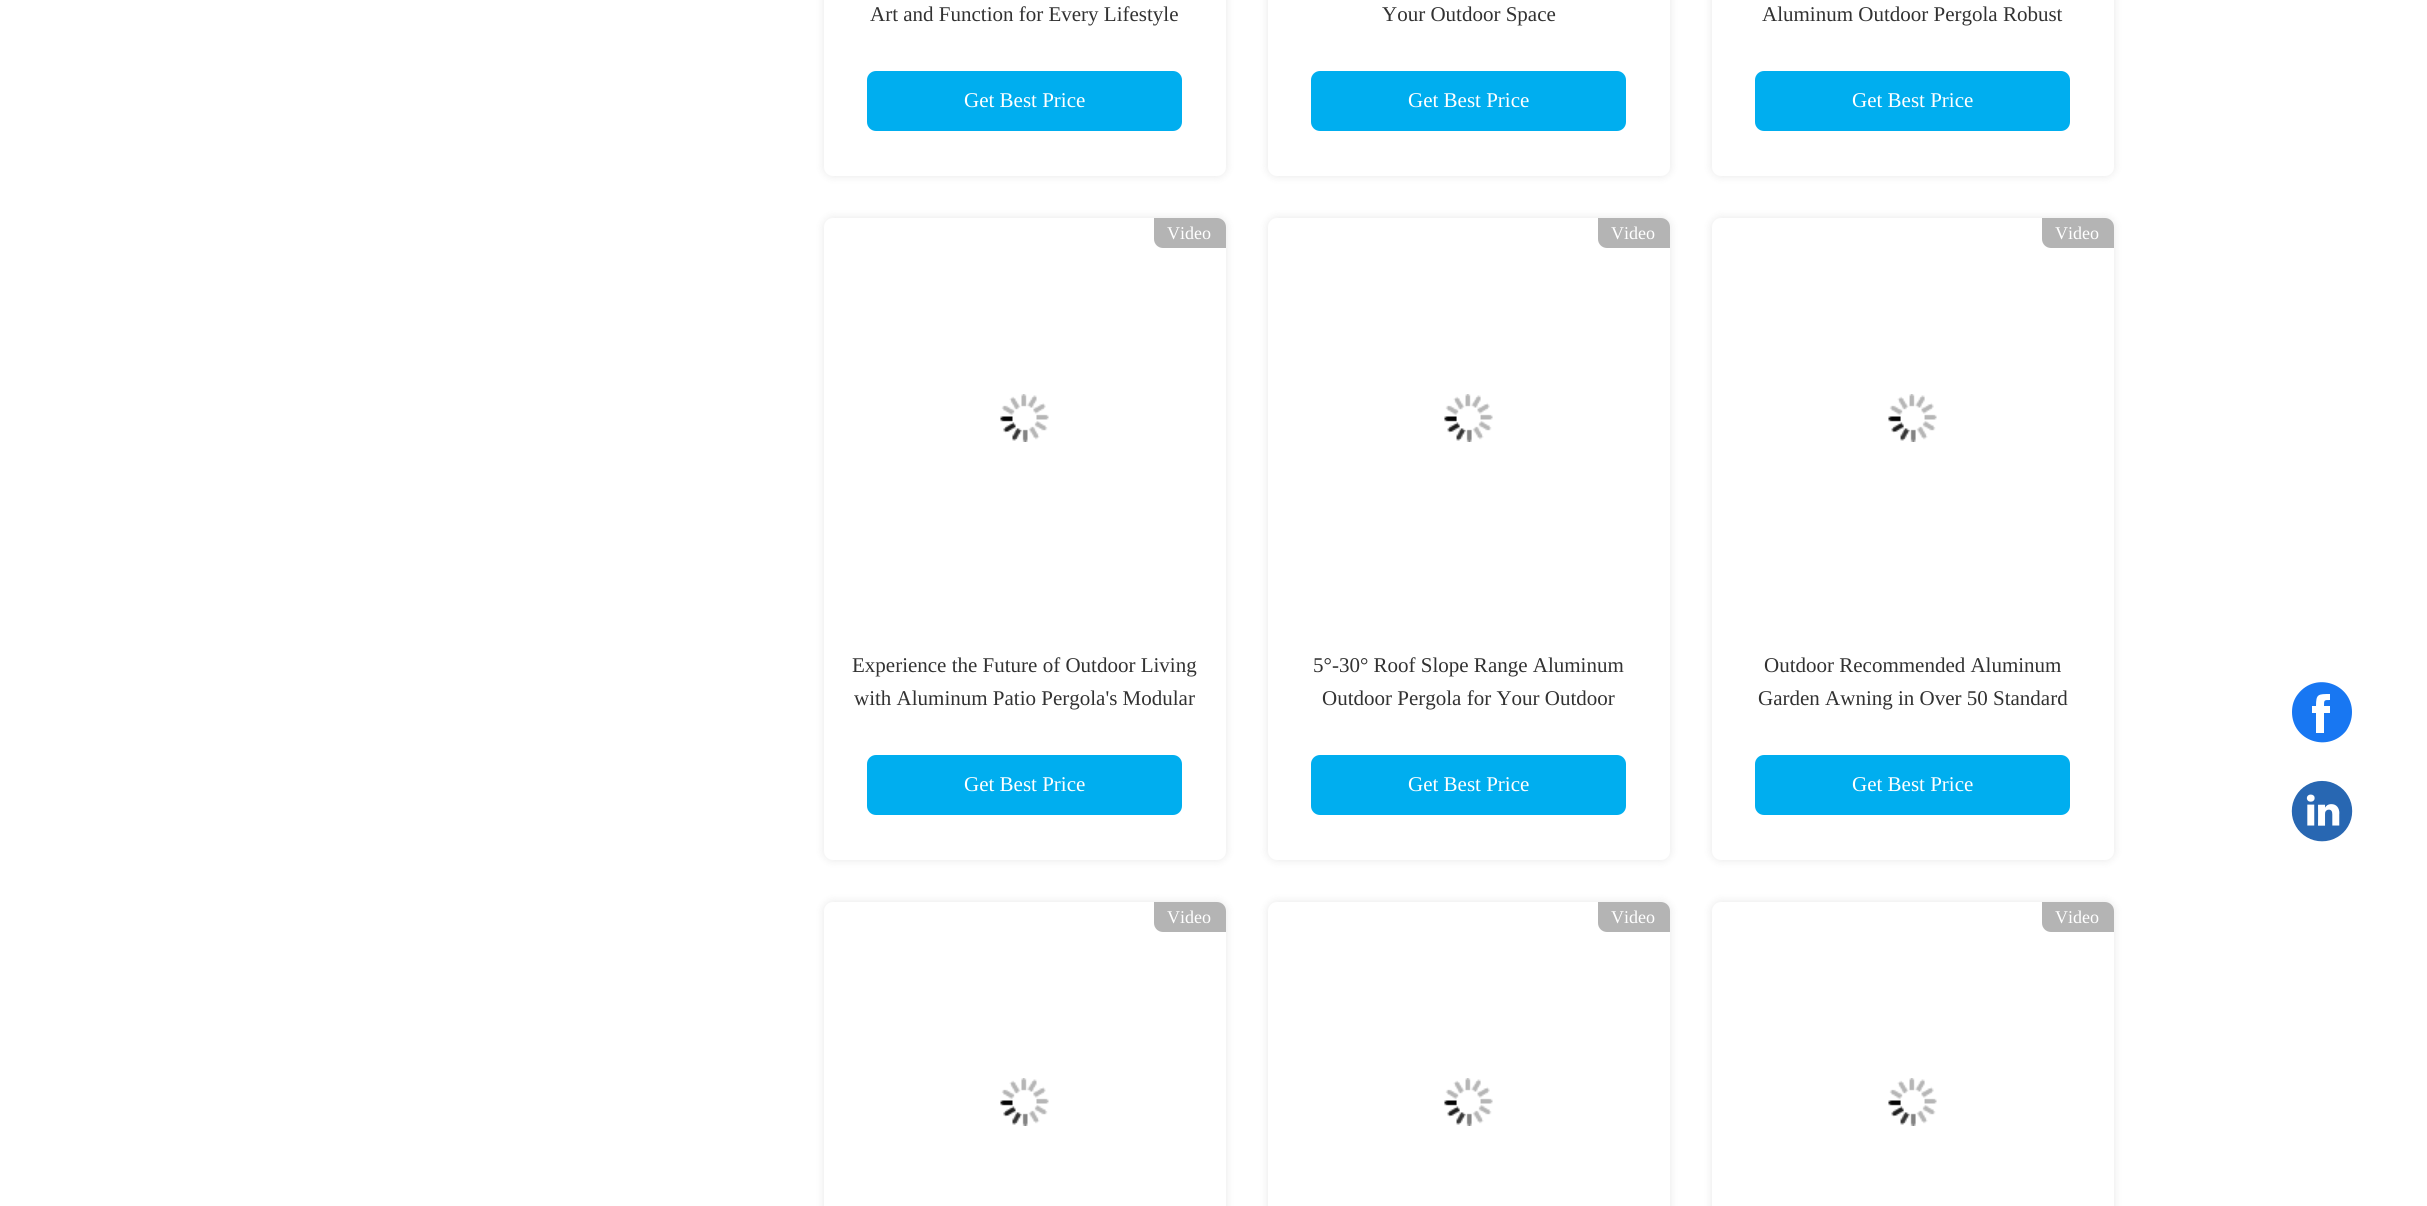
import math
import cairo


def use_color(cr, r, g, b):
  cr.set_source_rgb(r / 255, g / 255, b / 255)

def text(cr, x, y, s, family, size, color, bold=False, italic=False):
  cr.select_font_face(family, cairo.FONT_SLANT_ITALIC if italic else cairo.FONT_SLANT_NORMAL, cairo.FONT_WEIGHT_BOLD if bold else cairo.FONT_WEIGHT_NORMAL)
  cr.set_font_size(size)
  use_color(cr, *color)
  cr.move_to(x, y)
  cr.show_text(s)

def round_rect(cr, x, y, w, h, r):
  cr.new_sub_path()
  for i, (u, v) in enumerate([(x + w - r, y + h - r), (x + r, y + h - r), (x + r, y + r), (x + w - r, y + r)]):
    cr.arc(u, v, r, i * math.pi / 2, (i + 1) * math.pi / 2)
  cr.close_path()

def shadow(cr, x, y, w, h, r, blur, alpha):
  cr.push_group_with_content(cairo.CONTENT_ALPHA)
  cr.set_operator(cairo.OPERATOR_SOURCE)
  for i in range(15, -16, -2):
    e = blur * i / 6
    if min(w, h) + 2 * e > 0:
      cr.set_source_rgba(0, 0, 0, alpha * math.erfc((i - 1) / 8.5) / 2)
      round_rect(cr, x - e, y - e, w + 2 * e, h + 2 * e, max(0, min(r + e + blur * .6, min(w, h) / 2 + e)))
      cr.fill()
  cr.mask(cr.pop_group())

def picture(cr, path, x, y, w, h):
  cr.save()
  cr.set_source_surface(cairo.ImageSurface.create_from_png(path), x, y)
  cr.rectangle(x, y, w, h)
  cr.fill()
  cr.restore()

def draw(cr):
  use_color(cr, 255, 255, 255)
  cr.paint()
  use_color(cr, 0, 0, 0)
  shadow(cr, 824, -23, 402, 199, 9, 4.5, 0.1)
  use_color(cr, 255, 255, 255)
  round_rect(cr, 824, -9, 402, 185, 9)
  cr.fill()
  use_color(cr, 0, 174, 239)
  round_rect(cr, 867, 71, 315, 60, 9)
  cr.fill()
  use_color(cr, 0, 0, 0)
  shadow(cr, 1268, -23, 402, 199, 9, 4.5, 0.1)
  use_color(cr, 255, 255, 255)
  round_rect(cr, 1268, -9, 402, 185, 9)
  cr.fill()
  use_color(cr, 0, 174, 239)
  round_rect(cr, 1311, 71, 315, 60, 9)
  cr.fill()
  use_color(cr, 0, 0, 0)
  shadow(cr, 1712, -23, 402, 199, 9, 4.5, 0.1)
  use_color(cr, 255, 255, 255)
  round_rect(cr, 1712, -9, 402, 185, 9)
  cr.fill()
  use_color(cr, 0, 174, 239)
  round_rect(cr, 1755, 71, 315, 60, 9)
  cr.fill()
  use_color(cr, 0, 0, 0)
  shadow(cr, 824, 218, 402, 642, 9, 4.5, 0.1)
  use_color(cr, 255, 255, 255)
  round_rect(cr, 824, 218, 402, 642, 9)
  cr.fill()
  use_color(cr, 180, 180, 180)
  cr.new_path()
  cr.move_to(1154, 218)
  cr.line_to(1217, 218)
  cr.curve_to(1222, 218, 1226, 222, 1226, 227)
  cr.line_to(1226, 248)
  cr.line_to(1163, 248)
  cr.curve_to(1158, 248, 1154, 244, 1154, 239)
  cr.close_path()
  cr.fill()
  picture(cr, "img_01.png", 1000, 394, 49, 48)
  use_color(cr, 0, 174, 239)
  round_rect(cr, 867, 755, 315, 60, 9)
  cr.fill()
  use_color(cr, 0, 0, 0)
  shadow(cr, 1268, 218, 402, 642, 9, 4.5, 0.1)
  use_color(cr, 255, 255, 255)
  round_rect(cr, 1268, 218, 402, 642, 9)
  cr.fill()
  use_color(cr, 180, 180, 180)
  cr.new_path()
  cr.move_to(1598, 218)
  cr.line_to(1661, 218)
  cr.curve_to(1666, 218, 1670, 222, 1670, 227)
  cr.line_to(1670, 248)
  cr.line_to(1607, 248)
  cr.curve_to(1602, 248, 1598, 244, 1598, 239)
  cr.close_path()
  cr.fill()
  picture(cr, "img_02.png", 1444, 394, 49, 48)
  use_color(cr, 0, 174, 239)
  round_rect(cr, 1311, 755, 315, 60, 9)
  cr.fill()
  use_color(cr, 0, 0, 0)
  shadow(cr, 1712, 218, 402, 642, 9, 4.5, 0.1)
  use_color(cr, 255, 255, 255)
  round_rect(cr, 1712, 218, 402, 642, 9)
  cr.fill()
  use_color(cr, 180, 180, 180)
  cr.new_path()
  cr.move_to(2042, 218)
  cr.line_to(2105, 218)
  cr.curve_to(2110, 218, 2114, 222, 2114, 227)
  cr.line_to(2114, 248)
  cr.line_to(2051, 248)
  cr.curve_to(2046, 248, 2042, 244, 2042, 239)
  cr.close_path()
  cr.fill()
  picture(cr, "img_02.png", 1888, 394, 49, 48)
  use_color(cr, 0, 174, 239)
  round_rect(cr, 1755, 755, 315, 60, 9)
  cr.fill()
  use_color(cr, 0, 0, 0)
  shadow(cr, 824, 902, 402, 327, 9, 4.5, 0.1)
  use_color(cr, 255, 255, 255)
  round_rect(cr, 824, 902, 402, 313, 9)
  cr.fill()
  use_color(cr, 180, 180, 180)
  cr.new_path()
  cr.move_to(1154, 902)
  cr.line_to(1217, 902)
  cr.curve_to(1222, 902, 1226, 906, 1226, 911)
  cr.line_to(1226, 932)
  cr.line_to(1163, 932)
  cr.curve_to(1158, 932, 1154, 928, 1154, 923)
  cr.close_path()
  cr.fill()
  picture(cr, "img_01.png", 1000, 1078, 49, 48)
  use_color(cr, 0, 0, 0)
  shadow(cr, 1268, 902, 402, 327, 9, 4.5, 0.1)
  use_color(cr, 255, 255, 255)
  round_rect(cr, 1268, 902, 402, 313, 9)
  cr.fill()
  use_color(cr, 180, 180, 180)
  cr.new_path()
  cr.move_to(1598, 902)
  cr.line_to(1661, 902)
  cr.curve_to(1666, 902, 1670, 906, 1670, 911)
  cr.line_to(1670, 932)
  cr.line_to(1607, 932)
  cr.curve_to(1602, 932, 1598, 928, 1598, 923)
  cr.close_path()
  cr.fill()
  picture(cr, "img_02.png", 1444, 1078, 49, 48)
  use_color(cr, 0, 0, 0)
  shadow(cr, 1712, 902, 402, 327, 9, 4.5, 0.1)
  use_color(cr, 255, 255, 255)
  round_rect(cr, 1712, 902, 402, 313, 9)
  cr.fill()
  use_color(cr, 180, 180, 180)
  cr.new_path()
  cr.move_to(2042, 902)
  cr.line_to(2105, 902)
  cr.curve_to(2110, 902, 2114, 906, 2114, 911)
  cr.line_to(2114, 932)
  cr.line_to(2051, 932)
  cr.curve_to(2046, 932, 2042, 928, 2042, 923)
  cr.close_path()
  cr.fill()
  picture(cr, "img_02.png", 1888, 1078, 49, 48)
  use_color(cr, 24, 119, 242)
  cr.new_path()
  cr.move_to(2292, 712)
  cr.curve_to(2292, 705, 2294, 699, 2298, 694)
  cr.curve_to(2316, 671, 2352, 684, 2352, 712)
  cr.curve_to(2352, 719, 2350, 725, 2346, 731)
  cr.curve_to(2328, 753, 2292, 741, 2292, 712)
  cr.close_path()
  cr.move_to(2330, 713)
  cr.line_to(2330, 706)
  cr.line_to(2324, 706)
  cr.curve_to(2324, 700, 2324, 700, 2330, 700)
  cr.line_to(2330, 694)
  cr.curve_to(2318, 694, 2316, 694, 2316, 706)
  cr.line_to(2312, 706)
  cr.line_to(2312, 713)
  cr.line_to(2316, 713)
  cr.line_to(2316, 733)
  cr.line_to(2324, 733)
  cr.line_to(2324, 713)
  cr.close_path()
  cr.fill()
  picture(cr, "img_03.png", 2291, 780, 62, 62)
  text(cr, 870, 21, "Art and Function for Every Lifestyle", "Liberation Serif", 21, (50, 50, 50))
  text(cr, 964, 107, "Get Best Price", "Liberation Serif", 21, (255, 255, 255))
  text(cr, 1382, 21, "Your Outdoor Space", "Liberation Serif", 21, (50, 50, 50))
  text(cr, 1408, 107, "Get Best Price", "Liberation Serif", 21, (255, 255, 255))
  text(cr, 1762, 21, "Aluminum Outdoor Pergola Robust", "Liberation Serif", 21, (50, 50, 50))
  text(cr, 1852, 107, "Get Best Price", "Liberation Serif", 21, (255, 255, 255))
  text(cr, 1167, 239, "Video", "Liberation Serif", 18, (255, 255, 255))
  text(cr, 852, 672, "Experience the Future of Outdoor Living", "Liberation Serif", 21, (50, 50, 50))
  text(cr, 854, 705, "with Aluminum Patio Pergola's Modular", "Liberation Serif", 21, (50, 50, 50))
  text(cr, 964, 791, "Get Best Price", "Liberation Serif", 21, (255, 255, 255))
  text(cr, 1611, 239, "Video", "Liberation Serif", 18, (255, 255, 255))
  text(cr, 1313, 672, "5°-30° Roof Slope Range Aluminum", "Liberation Serif", 21, (50, 50, 50))
  text(cr, 1322, 705, "Outdoor Pergola for Your Outdoor", "Liberation Serif", 21, (50, 50, 50))
  text(cr, 1408, 791, "Get Best Price", "Liberation Serif", 21, (255, 255, 255))
  text(cr, 2055, 239, "Video", "Liberation Serif", 18, (255, 255, 255))
  text(cr, 1764, 672, "Outdoor Recommended Aluminum", "Liberation Serif", 21, (50, 50, 50))
  text(cr, 1758, 705, "Garden Awning in Over 50 Standard", "Liberation Serif", 21, (50, 50, 50))
  text(cr, 1852, 791, "Get Best Price", "Liberation Serif", 21, (255, 255, 255))
  text(cr, 1167, 923, "Video", "Liberation Serif", 18, (255, 255, 255))
  text(cr, 1611, 923, "Video", "Liberation Serif", 18, (255, 255, 255))
  text(cr, 2055, 923, "Video", "Liberation Serif", 18, (255, 255, 255))


surface = cairo.ImageSurface(cairo.FORMAT_RGB24, 2427, 1206)
cr = cairo.Context(surface)
options = cairo.FontOptions()
options.set_hint_metrics(cairo.HINT_METRICS_OFF)
options.set_hint_style(cairo.HINT_STYLE_NONE)
cr.set_font_options(options)
cr.set_miter_limit(4)
draw(cr)
surface.write_to_png("out.png")
